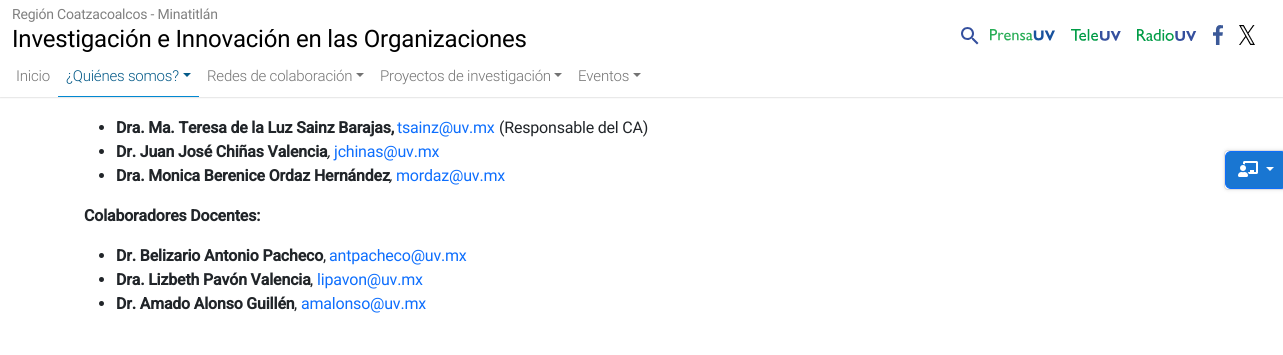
import math
import cairo


def use_color(cr, r, g, b):
  cr.set_source_rgb(r / 255, g / 255, b / 255)

def spaced_text(cr, x, y, s, letter, word):
  cr.move_to(x, y)
  for ch in s:
    cr.show_text(ch)
    cr.rel_move_to(letter + word * (ch == ' '), 0)

def box(cr, x, y, w, h, *color):
  use_color(cr, *color)
  cr.rectangle(x, y, w, h)
  cr.fill()

def round_rect(cr, x, y, w, h, r):
  cr.new_sub_path()
  for i, (u, v) in enumerate([(x + w - r, y + h - r), (x + r, y + h - r), (x + r, y + r), (x + w - r, y + r)]):
    cr.arc(u, v, r, i * math.pi / 2, (i + 1) * math.pi / 2)
  cr.close_path()

def shadow(cr, x, y, w, h, r, blur, alpha):
  cr.push_group_with_content(cairo.CONTENT_ALPHA)
  cr.set_operator(cairo.OPERATOR_SOURCE)
  for i in range(15, -16, -2):
    e = blur * i / 6
    if min(w, h) + 2 * e > 0:
      cr.set_source_rgba(0, 0, 0, alpha * math.erfc((i - 1) / 8.5) / 2)
      round_rect(cr, x - e, y - e, w + 2 * e, h + 2 * e, max(0, min(r + e + blur * .6, min(w, h) / 2 + e)))
      cr.fill()
  cr.mask(cr.pop_group())

def picture(cr, path, x, y, w, h):
  cr.save()
  cr.set_source_surface(cairo.ImageSurface.create_from_png(path), x, y)
  cr.rectangle(x, y, w, h)
  cr.fill()
  cr.restore()

def draw(cr):
  use_color(cr, 255, 255, 255)
  cr.paint()
  use_color(cr, 0, 0, 0)
  shadow(cr, 0, 1, 1283, 97, 0, 0.5, 0.1)
  box(cr, 0, 0, 1283, 97, 255, 255, 255)
  picture(cr, "img_01.png", 961, 27, 18, 18)
  picture(cr, "img_02.png", 990, 29, 65, 12)
  picture(cr, "img_03.png", 1071, 29, 50, 12)
  picture(cr, "img_04.png", 1137, 29, 60, 12)
  picture(cr, "img_05.png", 1213, 25, 10, 20)
  picture(cr, "img_06.png", 1239, 25, 16, 20)
  box(cr, 58, 96, 141, 1, 2, 136, 209)
  use_color(cr, 4, 90, 136)
  cr.new_path()
  cr.move_to(183, 73)
  cr.line_to(191, 73)
  cr.line_to(187, 77)
  cr.close_path()
  cr.fill()
  use_color(cr, 115, 115, 115)
  cr.new_path()
  cr.move_to(356, 73)
  cr.line_to(364, 73)
  cr.line_to(360, 77)
  cr.close_path()
  cr.fill()
  cr.new_path()
  cr.move_to(554, 73)
  cr.line_to(562, 73)
  cr.line_to(558, 77)
  cr.close_path()
  cr.fill()
  cr.new_path()
  cr.move_to(633, 73)
  cr.line_to(641, 73)
  cr.line_to(637, 77)
  cr.close_path()
  cr.fill()
  use_color(cr, 33, 37, 41)
  cr.arc(101.5, 127.5, 2.5, 0, 2 * math.pi)
  cr.fill()
  cr.arc(101.5, 151.5, 2.5, 0, 2 * math.pi)
  cr.fill()
  cr.arc(101.5, 175.5, 2.5, 0, 2 * math.pi)
  cr.fill()
  cr.arc(101.5, 255.5, 2.5, 0, 2 * math.pi)
  cr.fill()
  cr.arc(101.5, 279.5, 2.5, 0, 2 * math.pi)
  cr.fill()
  cr.arc(101.5, 303.5, 2.5, 0, 2 * math.pi)
  cr.fill()
  use_color(cr, 0, 0, 0)
  shadow(cr, 1224, 150, 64, 40, 4, 2, 0.1)
  use_color(cr, 255, 255, 255)
  round_rect(cr, 1224.5, 150.5, 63, 39, 3.5)
  cr.fill_preserve()
  use_color(cr, 221, 221, 221)
  cr.set_line_width(1)
  cr.stroke()
  use_color(cr, 25, 118, 210)
  round_rect(cr, 1225.5, 151.5, 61, 37, 5.5)
  cr.fill_preserve()
  use_color(cr, 13, 110, 253)
  cr.stroke()
  picture(cr, "img_07.png", 1238, 161, 20, 16)
  use_color(cr, 255, 255, 255)
  cr.new_path()
  cr.move_to(1266, 167)
  cr.line_to(1274, 167)
  cr.line_to(1270, 171)
  cr.close_path()
  cr.fill()
  cr.select_font_face("Roboto")
  cr.set_font_size(14)
  use_color(cr, 128, 128, 128)
  spaced_text(cr, 12, 19, "Región Coatzacoalcos - Minatitlán", -0.2, 0)
  cr.set_font_size(24)
  use_color(cr, 0, 0, 0)
  spaced_text(cr, 12, 47, "Investigación e Innovación en las Organizaciones", -0.2, 0)
  cr.select_font_face("Roboto Light")
  cr.set_font_size(15)
  use_color(cr, 115, 115, 115)
  spaced_text(cr, 16, 81, "Inicio", -0.2, 0)
  use_color(cr, 4, 90, 136)
  spaced_text(cr, 66, 81, "¿Quiénes somos?", -0.2, 0)
  use_color(cr, 115, 115, 115)
  spaced_text(cr, 207, 81, "Redes de colaboración", -0.2, 0)
  spaced_text(cr, 380, 81, "Proyectos de investigación", -0.2, 0)
  spaced_text(cr, 578, 81, "Eventos", -0.2, 0)
  cr.select_font_face("Roboto", cairo.FONT_SLANT_NORMAL, cairo.FONT_WEIGHT_BOLD)
  cr.set_font_size(16)
  use_color(cr, 33, 37, 41)
  spaced_text(cr, 116, 133, "Dra. Ma. Teresa de la Luz Sainz Barajas,", -0.2, 0)
  cr.select_font_face("Roboto")
  use_color(cr, 13, 110, 253)
  spaced_text(cr, 397, 133, "tsainz@uv.mx", -0.2, 0)
  use_color(cr, 33, 37, 41)
  spaced_text(cr, 499, 133, "(Responsable del CA)", -0.2, 0)
  cr.select_font_face("Roboto", cairo.FONT_SLANT_NORMAL, cairo.FONT_WEIGHT_BOLD)
  spaced_text(cr, 116, 157, "Dr. Juan José Chiñas Valencia", -0.2, 0)
  cr.select_font_face("Roboto")
  use_color(cr, 13, 110, 253)
  spaced_text(cr, 334, 157, "jchinas@uv.mx", -0.2, 0)
  cr.select_font_face("Roboto", cairo.FONT_SLANT_ITALIC)
  use_color(cr, 33, 37, 41)
  spaced_text(cr, 327, 157, ",", -0.2, 0)
  cr.select_font_face("Roboto", cairo.FONT_SLANT_NORMAL, cairo.FONT_WEIGHT_BOLD)
  spaced_text(cr, 116, 181, "Dra. Monica Berenice Ordaz Hernández", -0.2, 0)
  cr.select_font_face("Roboto")
  use_color(cr, 13, 110, 253)
  spaced_text(cr, 396, 181, "mordaz@uv.mx", -0.2, 0)
  cr.select_font_face("Roboto", cairo.FONT_SLANT_ITALIC)
  use_color(cr, 33, 37, 41)
  spaced_text(cr, 389, 181, ",", -0.2, 0)
  cr.select_font_face("Roboto", cairo.FONT_SLANT_NORMAL, cairo.FONT_WEIGHT_BOLD)
  spaced_text(cr, 84, 221, "Colaboradores Docentes:", -0.2, 0)
  spaced_text(cr, 116, 261, "Dr. Belizario Antonio Pacheco", -0.2, 0)
  cr.select_font_face("Roboto")
  use_color(cr, 13, 110, 253)
  spaced_text(cr, 329, 261, "antpacheco@uv.mx", -0.2, 0)
  use_color(cr, 33, 37, 41)
  spaced_text(cr, 323, 261, ",", -0.2, 0)
  cr.select_font_face("Roboto", cairo.FONT_SLANT_NORMAL, cairo.FONT_WEIGHT_BOLD)
  spaced_text(cr, 116, 285, "Dra. Lizbeth Pavón Valencia", -0.2, 0)
  cr.select_font_face("Roboto")
  use_color(cr, 13, 110, 253)
  spaced_text(cr, 317, 285, "lipavon@uv.mx", -0.2, 0)
  use_color(cr, 33, 37, 41)
  spaced_text(cr, 310, 285, ",", -0.2, 0)
  cr.select_font_face("Roboto", cairo.FONT_SLANT_NORMAL, cairo.FONT_WEIGHT_BOLD)
  spaced_text(cr, 116, 309, "Dr. Amado Alonso Guillén", -0.2, 0)
  cr.select_font_face("Roboto")
  use_color(cr, 13, 110, 253)
  spaced_text(cr, 301, 309, "amalonso@uv.mx", -0.2, 0)
  use_color(cr, 33, 37, 41)
  spaced_text(cr, 294, 309, ",", -0.2, 0)


surface = cairo.ImageSurface(cairo.FORMAT_RGB24, 1283, 355)
cr = cairo.Context(surface)
options = cairo.FontOptions()
options.set_hint_metrics(cairo.HINT_METRICS_OFF)
options.set_hint_style(cairo.HINT_STYLE_NONE)
cr.set_font_options(options)
cr.set_miter_limit(4)
draw(cr)
surface.write_to_png("out.png")
